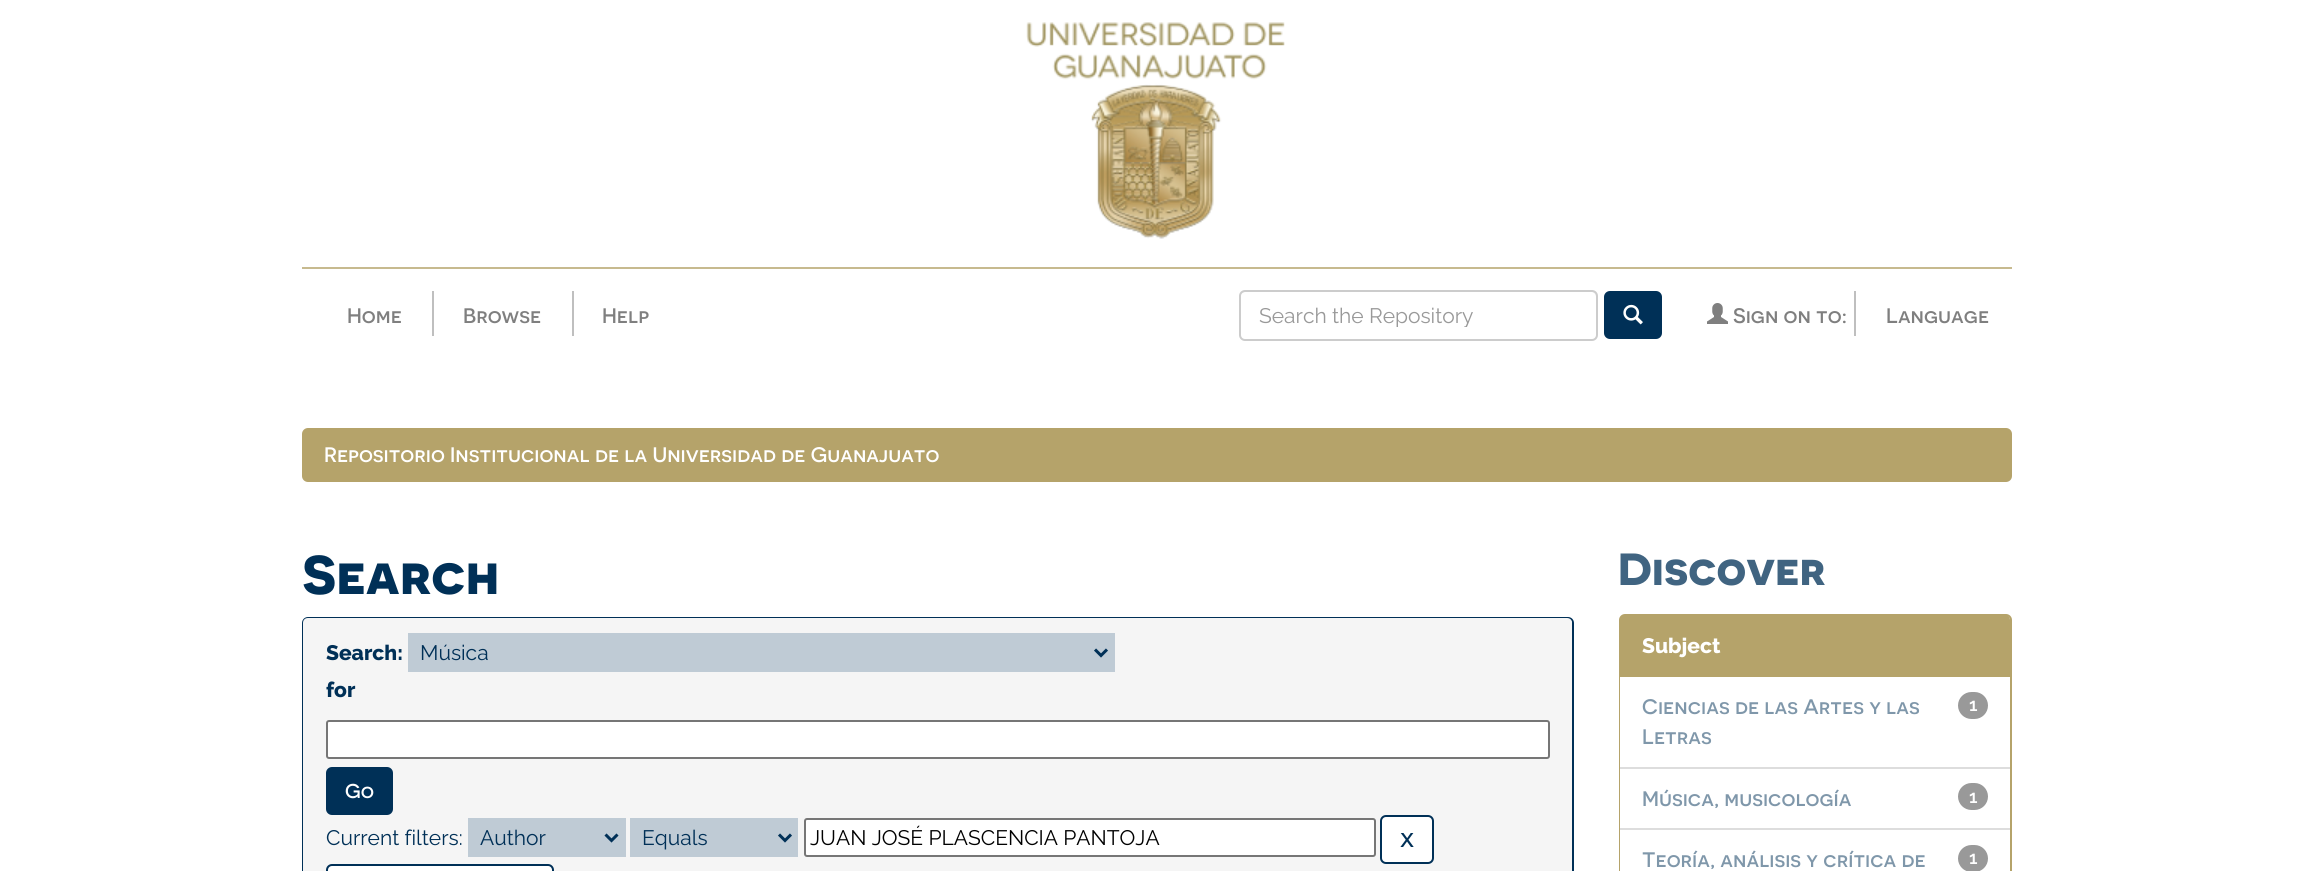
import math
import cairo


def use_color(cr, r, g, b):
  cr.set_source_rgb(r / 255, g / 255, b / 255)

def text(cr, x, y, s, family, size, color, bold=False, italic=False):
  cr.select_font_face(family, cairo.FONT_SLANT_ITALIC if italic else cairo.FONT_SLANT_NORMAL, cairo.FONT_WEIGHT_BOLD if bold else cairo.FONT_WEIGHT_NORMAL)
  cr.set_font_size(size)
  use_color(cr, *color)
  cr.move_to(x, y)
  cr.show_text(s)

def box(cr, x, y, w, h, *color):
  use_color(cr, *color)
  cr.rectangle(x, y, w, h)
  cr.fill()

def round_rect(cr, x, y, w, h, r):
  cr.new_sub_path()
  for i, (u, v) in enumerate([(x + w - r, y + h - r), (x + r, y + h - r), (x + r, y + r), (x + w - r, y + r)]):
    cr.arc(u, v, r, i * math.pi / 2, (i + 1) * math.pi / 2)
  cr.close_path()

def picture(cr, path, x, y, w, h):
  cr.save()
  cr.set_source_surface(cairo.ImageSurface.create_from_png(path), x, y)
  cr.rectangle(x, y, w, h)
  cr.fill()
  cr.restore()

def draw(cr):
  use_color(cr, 255, 255, 255)
  cr.paint()
  picture(cr, "img_01.png", 1026, 22, 259, 217)
  box(cr, 302, 267, 1710, 2, 199, 186, 143)
  box(cr, 432, 291, 2, 45, 191, 191, 191)
  box(cr, 572, 291, 2, 45, 191, 191, 191)
  use_color(cr, 236, 236, 236)
  cr.new_path()
  cr.move_to(1245, 292)
  cr.line_to(1592, 292)
  cr.curve_to(1594, 292, 1596, 295, 1596, 297)
  cr.line_to(1596, 296)
  cr.curve_to(1596, 293, 1594, 291, 1591, 291)
  cr.line_to(1246, 291)
  cr.curve_to(1244, 291, 1242, 292, 1241, 294)
  cr.curve_to(1242, 293, 1244, 292, 1245, 292)
  cr.close_path()
  cr.fill()
  round_rect(cr, 1240, 291, 357, 49, 5)
  use_color(cr, 204, 204, 204)
  cr.stroke()
  use_color(cr, 0, 48, 87)
  round_rect(cr, 1605, 292, 56, 46, 5)
  cr.fill_preserve()
  cr.stroke()
  picture(cr, "img_02.png", 1623, 304, 20, 21)
  picture(cr, "img_03.png", 1707, 303, 21, 21)
  box(cr, 1854, 291, 2, 45, 191, 191, 191)
  use_color(cr, 181, 163, 106)
  round_rect(cr, 302, 428, 1710, 54, 6)
  cr.fill()
  round_rect(cr, 303, 618, 1270, 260, 5)
  use_color(cr, 0, 48, 87)
  cr.stroke()
  use_color(cr, 245, 245, 245)
  cr.new_path()
  cr.move_to(308, 618)
  cr.line_to(1567, 618)
  cr.curve_to(1570, 618, 1572, 620, 1572, 623)
  cr.line_to(1572, 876)
  cr.line_to(303, 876)
  cr.line_to(303, 623)
  cr.curve_to(303, 620, 305, 618, 308, 618)
  cr.close_path()
  cr.fill()
  box(cr, 408, 633, 707, 39, 191, 203, 213)
  cr.new_path()
  cr.move_to(1095, 649.5)
  cr.line_to(1101, 655.5)
  cr.line_to(1107, 649.5)
  use_color(cr, 0, 48, 87)
  cr.set_line_width(3)
  cr.stroke()
  use_color(cr, 255, 255, 255)
  round_rect(cr, 327, 721, 1222, 37, 2)
  cr.fill_preserve()
  use_color(cr, 118, 118, 118)
  cr.set_line_width(2)
  cr.stroke()
  use_color(cr, 0, 48, 87)
  round_rect(cr, 327, 768, 65, 46, 5)
  cr.fill_preserve()
  cr.stroke()
  box(cr, 468, 818, 158, 39, 191, 203, 213)
  cr.new_path()
  cr.move_to(605.5, 834.5)
  cr.line_to(611.5, 840.5)
  cr.line_to(617.5, 834.5)
  use_color(cr, 0, 48, 87)
  cr.set_line_width(3)
  cr.stroke()
  box(cr, 630, 818, 168, 39, 191, 203, 213)
  cr.new_path()
  cr.move_to(779, 834.5)
  cr.line_to(785, 840.5)
  cr.line_to(791, 834.5)
  use_color(cr, 0, 48, 87)
  cr.stroke()
  use_color(cr, 255, 255, 255)
  round_rect(cr, 805, 819, 570, 37, 2)
  cr.fill_preserve()
  use_color(cr, 118, 118, 118)
  cr.set_line_width(2)
  cr.stroke()
  use_color(cr, 255, 255, 255)
  round_rect(cr, 1381, 816, 52, 47, 5)
  cr.fill_preserve()
  use_color(cr, 0, 48, 87)
  cr.stroke()
  use_color(cr, 255, 255, 255)
  round_rect(cr, 327, 865, 226, 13, 5)
  cr.fill_preserve()
  use_color(cr, 0, 48, 87)
  cr.stroke()
  round_rect(cr, 1620, 615, 391, 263, 5)
  use_color(cr, 181, 163, 106)
  cr.stroke()
  cr.new_path()
  cr.move_to(1625, 615)
  cr.line_to(2005, 615)
  cr.curve_to(2008, 615, 2010, 617, 2010, 620)
  cr.line_to(2010, 677)
  cr.line_to(1620, 677)
  cr.line_to(1620, 620)
  cr.curve_to(1620, 617, 1622, 615, 1625, 615)
  cr.close_path()
  cr.fill()
  box(cr, 1620, 677, 1, 90, 255, 255, 255)
  use_color(cr, 153, 153, 153)
  round_rect(cr, 1958, 692, 30, 27, 13.5)
  cr.fill()
  box(cr, 1620, 769, 1, 59, 255, 255, 255)
  box(cr, 1620, 767, 390, 2, 221, 221, 221)
  use_color(cr, 153, 153, 153)
  round_rect(cr, 1958, 783, 30, 27, 13.5)
  cr.fill()
  box(cr, 1620, 830, 1, 41, 255, 255, 255)
  box(cr, 1620, 828, 390, 2, 221, 221, 221)
  use_color(cr, 153, 153, 153)
  round_rect(cr, 1958, 845, 30, 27, 13.5)
  cr.fill()
  text(cr, 347, 323, "Home", "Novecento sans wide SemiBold", 21, (127, 127, 127))
  text(cr, 463, 323, "Browse", "Novecento sans wide SemiBold", 21, (127, 127, 127))
  text(cr, 602, 323, "Help", "Novecento sans wide SemiBold", 21, (127, 127, 127))
  cr.save()
  cr.rectangle(1259, 303, 319, 24)
  cr.clip()
  text(cr, 1259, 323, "Search the Repository", "Raleway", 21, (153, 153, 153))
  cr.restore()
  text(cr, 1733, 323, "Sign on to:", "Novecento sans wide SemiBold", 21, (127, 127, 127))
  text(cr, 1886, 323, "Language", "Novecento sans wide SemiBold", 21, (127, 127, 127))
  text(cr, 324, 462, "Repositorio Institucional de la Universidad de Guanajuato", "Novecento sans wide SemiBold", 21, (255, 255, 255))
  text(cr, 302, 594, "Search", "Novecento sans wide", 54.5, (0, 48, 87), bold=True)
  text(cr, 326, 660, "Search:", "Raleway ExtraBold", 21, (0, 48, 87))
  text(cr, 420, 660, "Música", "Raleway", 21, (0, 48, 87))
  text(cr, 326, 697, "for", "Raleway ExtraBold", 21, (0, 48, 87))
  text(cr, 345, 798, "Go", "Novecento sans wide SemiBold", 20, (255, 255, 255))
  text(cr, 326, 845, "Current filters:", "Raleway", 21, (0, 48, 87))
  text(cr, 480, 845, "Author", "Raleway", 21, (0, 48, 87))
  text(cr, 642, 845, "Equals", "Raleway", 21, (0, 48, 87))
  text(cr, 810, 845, "JUAN JOSÉ PLASCENCIA PANTOJA", "Raleway", 21, (0, 0, 0))
  text(cr, 1400, 847, "X", "Novecento sans wide SemiBold", 20, (0, 48, 87))
  text(cr, 1618, 585, "Discover", "Novecento sans wide", 45, (64, 100, 129), bold=True)
  text(cr, 1642, 653, "Subject", "Raleway ExtraBold", 21, (255, 255, 255))
  text(cr, 1642, 714, "Ciencias de las Artes y las", "Novecento sans wide SemiBold", 21, (127, 151, 170))
  text(cr, 1969, 711, "1", "Raleway SemiBold", 18, (255, 255, 255))
  text(cr, 1642, 744, "Letras", "Novecento sans wide SemiBold", 21, (127, 151, 170))
  text(cr, 1642, 806, "Música, musicología", "Novecento sans wide SemiBold", 21, (127, 151, 170))
  text(cr, 1969, 803, "1", "Raleway SemiBold", 18, (255, 255, 255))
  text(cr, 1642, 867, "Teoría, análisis y crítica de", "Novecento sans wide SemiBold", 21, (127, 151, 170))
  text(cr, 1969, 864, "1", "Raleway SemiBold", 18, (255, 255, 255))


surface = cairo.ImageSurface(cairo.FORMAT_RGB24, 2312, 871)
cr = cairo.Context(surface)
options = cairo.FontOptions()
options.set_hint_metrics(cairo.HINT_METRICS_OFF)
options.set_hint_style(cairo.HINT_STYLE_NONE)
cr.set_font_options(options)
cr.set_miter_limit(4)
draw(cr)
surface.write_to_png("out.png")
